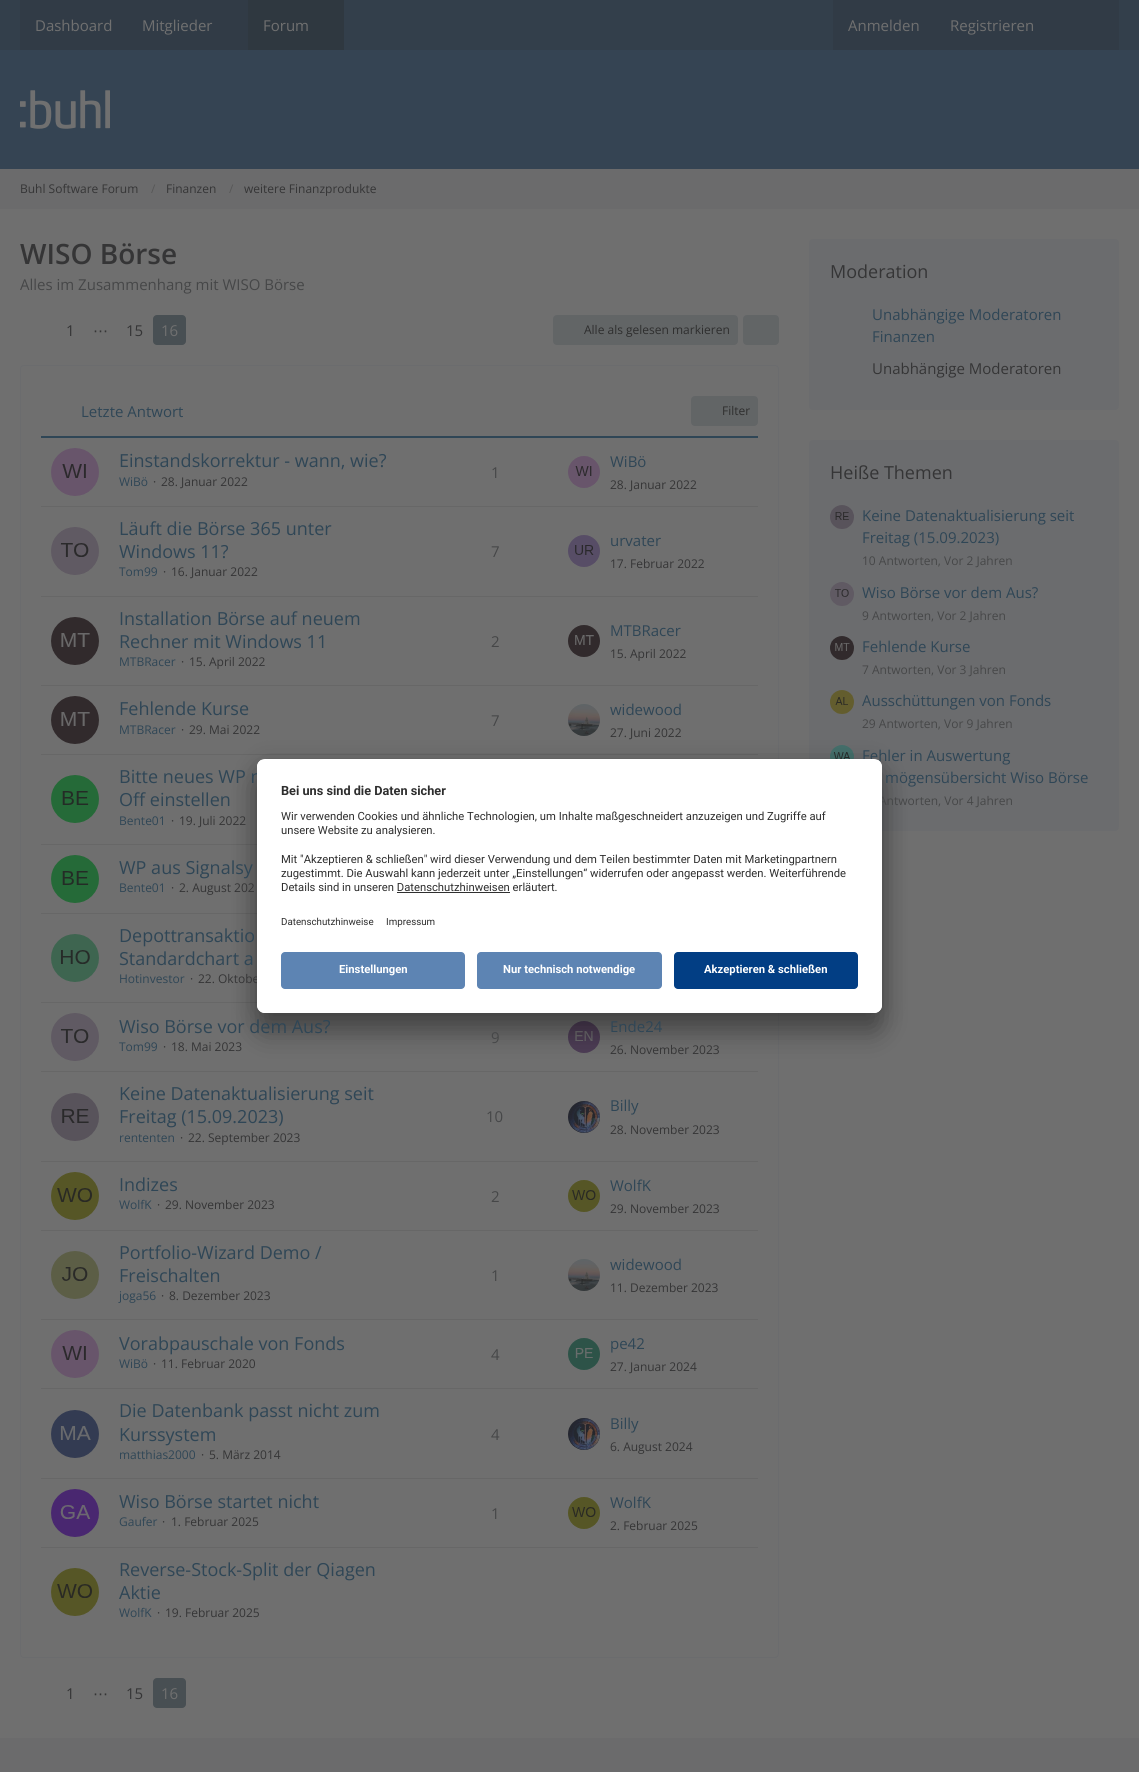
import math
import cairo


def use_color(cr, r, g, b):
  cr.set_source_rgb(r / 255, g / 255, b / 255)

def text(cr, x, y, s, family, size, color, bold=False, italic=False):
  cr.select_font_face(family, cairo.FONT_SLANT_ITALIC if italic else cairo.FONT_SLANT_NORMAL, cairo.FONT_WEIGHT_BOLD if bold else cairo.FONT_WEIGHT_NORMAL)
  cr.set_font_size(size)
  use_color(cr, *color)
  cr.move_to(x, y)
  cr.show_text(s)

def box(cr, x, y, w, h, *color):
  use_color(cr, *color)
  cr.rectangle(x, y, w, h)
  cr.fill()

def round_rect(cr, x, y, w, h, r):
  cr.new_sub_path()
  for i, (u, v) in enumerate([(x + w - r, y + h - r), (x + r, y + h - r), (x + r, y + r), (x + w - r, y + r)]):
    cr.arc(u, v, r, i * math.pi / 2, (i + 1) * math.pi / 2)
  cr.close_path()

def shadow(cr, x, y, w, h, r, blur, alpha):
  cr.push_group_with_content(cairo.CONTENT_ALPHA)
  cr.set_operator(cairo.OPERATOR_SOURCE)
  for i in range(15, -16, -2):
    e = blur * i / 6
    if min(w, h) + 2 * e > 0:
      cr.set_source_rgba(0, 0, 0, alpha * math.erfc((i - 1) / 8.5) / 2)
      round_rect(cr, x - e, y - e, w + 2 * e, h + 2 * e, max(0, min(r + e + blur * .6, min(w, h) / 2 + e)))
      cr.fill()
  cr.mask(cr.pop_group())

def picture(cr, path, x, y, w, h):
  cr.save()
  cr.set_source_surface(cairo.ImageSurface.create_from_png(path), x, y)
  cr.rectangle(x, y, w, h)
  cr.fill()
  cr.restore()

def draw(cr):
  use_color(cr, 111, 111, 111)
  cr.paint()
  box(cr, 0, 50, 1139, 119, 53, 68, 83)
  box(cr, 0, 0, 1139, 50, 51, 63, 75)
  box(cr, 20, 0, 228, 50, 49, 59, 70)
  box(cr, 248, 0, 96, 50, 47, 56, 64)
  box(cr, 833, 0, 286, 50, 49, 59, 70)
  picture(cr, "img_01.png", 20, 90, 90, 39)
  box(cr, 0, 169, 1139, 40, 107, 107, 108)
  use_color(cr, 72, 79, 83)
  round_rect(cr, 153, 315, 33, 30, 4)
  cr.fill()
  use_color(cr, 98, 101, 102)
  round_rect(cr, 553, 315, 185, 30, 4)
  cr.fill()
  round_rect(cr, 743, 315, 36, 30, 4)
  cr.fill()
  round_rect(cr, 20.5, 365.5, 758, 1292, 3.5)
  use_color(cr, 107, 108, 110)
  cr.set_line_width(1)
  cr.stroke()
  box(cr, 41, 436, 717, 2, 47, 70, 86)
  use_color(cr, 98, 101, 102)
  round_rect(cr, 691, 396, 67, 30, 4)
  cr.fill()
  picture(cr, "img_02.png", 51, 448, 48, 48)
  picture(cr, "img_03.png", 568, 456, 32, 32)
  box(cr, 41, 506, 717, 1, 103, 103, 103)
  picture(cr, "img_04.png", 51, 527, 48, 48)
  picture(cr, "img_05.png", 568, 535, 32, 32)
  box(cr, 41, 596, 717, 1, 103, 103, 103)
  picture(cr, "img_06.png", 51, 617, 48, 48)
  picture(cr, "img_07.png", 568, 625, 32, 32)
  box(cr, 41, 685, 717, 1, 103, 103, 103)
  picture(cr, "img_06.png", 51, 696, 48, 48)
  picture(cr, "img_08.png", 568, 704, 32, 32)
  box(cr, 41, 754, 717, 1, 103, 103, 103)
  picture(cr, "img_09.png", 51, 775, 48, 48)
  box(cr, 41, 844, 216, 1, 103, 103, 103)
  picture(cr, "img_09.png", 51, 855, 48, 48)
  box(cr, 41, 913, 216, 1, 103, 103, 103)
  picture(cr, "img_10.png", 51, 934, 48, 48)
  box(cr, 41, 1002, 216, 1, 103, 103, 103)
  picture(cr, "img_11.png", 51, 1013, 48, 48)
  picture(cr, "img_12.png", 568, 1021, 32, 32)
  box(cr, 41, 1071, 717, 1, 103, 103, 103)
  picture(cr, "img_13.png", 51, 1093, 48, 48)
  picture(cr, "img_14.png", 568, 1101, 32, 32)
  box(cr, 41, 1161, 717, 1, 103, 103, 103)
  picture(cr, "img_15.png", 51, 1172, 48, 48)
  picture(cr, "img_16.png", 568, 1180, 32, 32)
  box(cr, 41, 1230, 717, 1, 103, 103, 103)
  picture(cr, "img_17.png", 51, 1251, 48, 48)
  picture(cr, "img_18.png", 568, 1259, 32, 32)
  box(cr, 41, 1319, 717, 1, 103, 103, 103)
  picture(cr, "img_02.png", 51, 1330, 48, 48)
  picture(cr, "img_19.png", 568, 1338, 32, 32)
  box(cr, 41, 1388, 717, 1, 103, 103, 103)
  picture(cr, "img_20.png", 51, 1410, 48, 48)
  picture(cr, "img_14.png", 568, 1418, 32, 32)
  box(cr, 41, 1478, 717, 1, 103, 103, 103)
  picture(cr, "img_21.png", 51, 1489, 48, 48)
  picture(cr, "img_16.png", 568, 1497, 32, 32)
  box(cr, 41, 1547, 717, 1, 103, 103, 103)
  picture(cr, "img_15.png", 51, 1568, 48, 48)
  use_color(cr, 72, 79, 83)
  round_rect(cr, 153, 1678, 33, 30, 4)
  cr.fill()
  use_color(cr, 107, 108, 110)
  round_rect(cr, 809, 239, 310, 171, 4)
  cr.fill()
  round_rect(cr, 809, 440, 310, 391, 4)
  cr.fill()
  picture(cr, "img_22.png", 830, 505, 24, 24)
  picture(cr, "img_23.png", 830, 582, 24, 24)
  picture(cr, "img_24.png", 830, 636, 24, 24)
  picture(cr, "img_25.png", 830, 690, 24, 24)
  picture(cr, "img_26.png", 830, 745, 24, 14)
  box(cr, 0, 1738, 1139, 34, 107, 107, 108)
  use_color(cr, 0, 0, 0)
  shadow(cr, 257, 779, 625, 254, 8, 14, 0.3)
  shadow(cr, 257, 764, 625, 254, 8, 13, 0.22)
  text(cr, 35, 31, "Dashboard", "Open Sans", 15, (112, 112, 112))
  text(cr, 142, 31, "Mitglieder", "Open Sans", 15, (112, 112, 112))
  text(cr, 263, 31, "Forum", "Open Sans", 15, (112, 112, 112))
  text(cr, 848, 31, "Anmelden", "Open Sans", 15, (112, 112, 112))
  text(cr, 950, 31, "Registrieren", "Open Sans", 15, (112, 112, 112))
  text(cr, 20, 193, "Buhl Software Forum", "Open Sans", 12, (53, 53, 54))
  text(cr, 151, 193, "/", "Open Sans", 12, (87, 87, 87))
  text(cr, 166, 193, "Finanzen", "Open Sans", 12, (53, 53, 54))
  text(cr, 229, 193, "/", "Open Sans", 12, (87, 87, 87))
  text(cr, 244, 193, "weitere Finanzprodukte", "Open Sans", 12, (53, 53, 54))
  text(cr, 20, 264, "WISO Börse", "Open Sans SemiBold", 28, (53, 53, 54))
  text(cr, 20, 290, "Alles im Zusammenhang mit WISO Börse", "Open Sans", 15, (70, 71, 72))
  text(cr, 66, 336, "1", "Open Sans", 15, (53, 53, 54))
  text(cr, 93, 336, "⋯", "DejaVu Sans", 15, (53, 53, 54))
  text(cr, 126, 336, "15", "Open Sans", 15, (53, 53, 54))
  text(cr, 161, 336, "16", "Open Sans", 15, (112, 112, 112))
  text(cr, 584, 334, "Alle als gelesen markieren", "Open Sans", 12, (46, 46, 46))
  text(cr, 81, 417, "Letzte Antwort", "Open Sans", 15, (47, 70, 86))
  text(cr, 722, 415, "Filter", "Open Sans", 12, (46, 46, 46))
  text(cr, 119, 467, "Einstandskorrektur - wann, wie?", "Open Sans", 18, (47, 70, 86))
  text(cr, 119, 486, "WiBö", "Open Sans", 12, (47, 70, 86))
  text(cr, 153, 486, "·", "Open Sans", 12, (53, 53, 54))
  text(cr, 161, 486, "28. Januar 2022", "Open Sans", 12, (53, 53, 54))
  text(cr, 491, 478, "1", "Open Sans", 15, (70, 71, 72))
  text(cr, 610, 467, "WiBö", "Open Sans", 15, (47, 70, 86))
  text(cr, 610, 489, "28. Januar 2022", "Open Sans", 12, (53, 53, 54))
  text(cr, 119, 535, "Läuft die Börse 365 unter", "Open Sans", 18, (47, 70, 86))
  text(cr, 119, 558, "Windows 11?", "Open Sans", 18, (47, 70, 86))
  text(cr, 119, 576, "Tom99", "Open Sans", 12, (47, 70, 86))
  text(cr, 163, 576, "·", "Open Sans", 12, (53, 53, 54))
  text(cr, 171, 576, "16. Januar 2022", "Open Sans", 12, (53, 53, 54))
  text(cr, 491, 557, "7", "Open Sans", 15, (70, 71, 72))
  text(cr, 610, 546, "urvater", "Open Sans", 15, (47, 70, 86))
  text(cr, 610, 568, "17. Februar 2022", "Open Sans", 12, (53, 53, 54))
  text(cr, 119, 625, "Installation Börse auf neuem", "Open Sans", 18, (47, 70, 86))
  text(cr, 119, 648, "Rechner mit Windows 11", "Open Sans", 18, (47, 70, 86))
  text(cr, 119, 666, "MTBRacer", "Open Sans", 12, (47, 70, 86))
  text(cr, 181, 666, "·", "Open Sans", 12, (53, 53, 54))
  text(cr, 189, 666, "15. April 2022", "Open Sans", 12, (53, 53, 54))
  text(cr, 491, 647, "2", "Open Sans", 15, (70, 71, 72))
  text(cr, 610, 636, "MTBRacer", "Open Sans", 15, (47, 70, 86))
  text(cr, 610, 658, "15. April 2022", "Open Sans", 12, (53, 53, 54))
  text(cr, 119, 715, "Fehlende Kurse", "Open Sans", 18, (47, 70, 86))
  text(cr, 119, 734, "MTBRacer", "Open Sans", 12, (47, 70, 86))
  text(cr, 181, 734, "·", "Open Sans", 12, (53, 53, 54))
  text(cr, 189, 734, "29. Mai 2022", "Open Sans", 12, (53, 53, 54))
  text(cr, 491, 726, "7", "Open Sans", 15, (70, 71, 72))
  text(cr, 610, 715, "widewood", "Open Sans", 15, (47, 70, 86))
  text(cr, 610, 737, "27. Juni 2022", "Open Sans", 12, (53, 53, 54))
  text(cr, 119, 783, "Bitte neues WP n", "Open Sans", 18, (47, 70, 86))
  text(cr, 119, 806, "Off einstellen", "Open Sans", 18, (47, 70, 86))
  text(cr, 119, 825, "Bente01", "Open Sans", 12, (47, 70, 86))
  text(cr, 171, 825, "·", "Open Sans", 12, (53, 53, 54))
  text(cr, 179, 825, "19. Juli 2022", "Open Sans", 12, (53, 53, 54))
  text(cr, 119, 874, "WP aus Signalsy", "Open Sans", 18, (47, 70, 86))
  text(cr, 119, 892, "Bente01", "Open Sans", 12, (47, 70, 86))
  text(cr, 171, 892, "·", "Open Sans", 12, (53, 53, 54))
  text(cr, 179, 892, "2. August 202", "Open Sans", 12, (53, 53, 54))
  text(cr, 119, 942, "Depottransaktio", "Open Sans", 18, (47, 70, 86))
  text(cr, 119, 965, "Standardchart a", "Open Sans", 18, (47, 70, 86))
  text(cr, 119, 983, "Hotinvestor", "Open Sans", 12, (47, 70, 86))
  text(cr, 190, 983, "·", "Open Sans", 12, (53, 53, 54))
  text(cr, 198, 983, "22. Oktobe", "Open Sans", 12, (53, 53, 54))
  text(cr, 119, 1033, "Wiso Börse vor dem Aus?", "Open Sans", 18, (47, 70, 86))
  text(cr, 119, 1051, "Tom99", "Open Sans", 12, (47, 70, 86))
  text(cr, 163, 1051, "·", "Open Sans", 12, (53, 53, 54))
  text(cr, 171, 1051, "18. Mai 2023", "Open Sans", 12, (53, 53, 54))
  text(cr, 491, 1043, "9", "Open Sans", 15, (70, 71, 72))
  text(cr, 610, 1032, "Ende24", "Open Sans", 15, (47, 70, 86))
  text(cr, 610, 1054, "26. November 2023", "Open Sans", 12, (53, 53, 54))
  text(cr, 119, 1100, "Keine Datenaktualisierung seit", "Open Sans", 18, (47, 70, 86))
  text(cr, 119, 1123, "Freitag (15.09.2023)", "Open Sans", 18, (47, 70, 86))
  text(cr, 119, 1142, "rententen", "Open Sans", 12, (47, 70, 86))
  text(cr, 180, 1142, "·", "Open Sans", 12, (53, 53, 54))
  text(cr, 188, 1142, "22. September 2023", "Open Sans", 12, (53, 53, 54))
  text(cr, 486, 1122, "10", "Open Sans", 15, (70, 71, 72))
  text(cr, 610, 1111, "Billy", "Open Sans", 15, (47, 70, 86))
  text(cr, 610, 1134, "28. November 2023", "Open Sans", 12, (53, 53, 54))
  text(cr, 119, 1191, "Indizes", "Open Sans", 18, (47, 70, 86))
  text(cr, 119, 1209, "WolfK", "Open Sans", 12, (47, 70, 86))
  text(cr, 157, 1209, "·", "Open Sans", 12, (53, 53, 54))
  text(cr, 165, 1209, "29. November 2023", "Open Sans", 12, (53, 53, 54))
  text(cr, 491, 1202, "2", "Open Sans", 15, (70, 71, 72))
  text(cr, 610, 1191, "WolfK", "Open Sans", 15, (47, 70, 86))
  text(cr, 610, 1213, "29. November 2023", "Open Sans", 12, (53, 53, 54))
  text(cr, 119, 1259, "Portfolio-Wizard Demo /", "Open Sans", 18, (47, 70, 86))
  text(cr, 119, 1282, "Freischalten", "Open Sans", 18, (47, 70, 86))
  text(cr, 119, 1300, "joga56", "Open Sans", 12, (47, 70, 86))
  text(cr, 161, 1300, "·", "Open Sans", 12, (53, 53, 54))
  text(cr, 169, 1300, "8. Dezember 2023", "Open Sans", 12, (53, 53, 54))
  text(cr, 491, 1281, "1", "Open Sans", 15, (70, 71, 72))
  text(cr, 610, 1270, "widewood", "Open Sans", 15, (47, 70, 86))
  text(cr, 610, 1292, "11. Dezember 2023", "Open Sans", 12, (53, 53, 54))
  text(cr, 119, 1350, "Vorabpauschale von Fonds", "Open Sans", 18, (47, 70, 86))
  text(cr, 119, 1368, "WiBö", "Open Sans", 12, (47, 70, 86))
  text(cr, 153, 1368, "·", "Open Sans", 12, (53, 53, 54))
  text(cr, 161, 1368, "11. Februar 2020", "Open Sans", 12, (53, 53, 54))
  text(cr, 491, 1360, "4", "Open Sans", 15, (70, 71, 72))
  text(cr, 610, 1349, "pe42", "Open Sans", 15, (47, 70, 86))
  text(cr, 610, 1371, "27. Januar 2024", "Open Sans", 12, (53, 53, 54))
  text(cr, 119, 1417, "Die Datenbank passt nicht zum", "Open Sans", 18, (47, 70, 86))
  text(cr, 119, 1441, "Kurssystem", "Open Sans", 18, (47, 70, 86))
  text(cr, 119, 1459, "matthias2000", "Open Sans", 12, (47, 70, 86))
  text(cr, 201, 1459, "·", "Open Sans", 12, (53, 53, 54))
  text(cr, 209, 1459, "5. März 2014", "Open Sans", 12, (53, 53, 54))
  text(cr, 491, 1440, "4", "Open Sans", 15, (70, 71, 72))
  text(cr, 610, 1429, "Billy", "Open Sans", 15, (47, 70, 86))
  text(cr, 610, 1451, "6. August 2024", "Open Sans", 12, (53, 53, 54))
  text(cr, 119, 1508, "Wiso Börse startet nicht", "Open Sans", 18, (47, 70, 86))
  text(cr, 119, 1526, "Gaufer", "Open Sans", 12, (47, 70, 86))
  text(cr, 162, 1526, "·", "Open Sans", 12, (53, 53, 54))
  text(cr, 171, 1526, "1. Februar 2025", "Open Sans", 12, (53, 53, 54))
  text(cr, 491, 1519, "1", "Open Sans", 15, (70, 71, 72))
  text(cr, 610, 1508, "WolfK", "Open Sans", 15, (47, 70, 86))
  text(cr, 610, 1530, "2. Februar 2025", "Open Sans", 12, (53, 53, 54))
  text(cr, 119, 1576, "Reverse-Stock-Split der Qiagen", "Open Sans", 18, (47, 70, 86))
  text(cr, 119, 1599, "Aktie", "Open Sans", 18, (47, 70, 86))
  text(cr, 119, 1617, "WolfK", "Open Sans", 12, (47, 70, 86))
  text(cr, 157, 1617, "·", "Open Sans", 12, (53, 53, 54))
  text(cr, 165, 1617, "19. Februar 2025", "Open Sans", 12, (53, 53, 54))
  text(cr, 66, 1699, "1", "Open Sans", 15, (53, 53, 54))
  text(cr, 93, 1699, "⋯", "DejaVu Sans", 15, (53, 53, 54))
  text(cr, 126, 1699, "15", "Open Sans", 15, (53, 53, 54))
  text(cr, 161, 1699, "16", "Open Sans", 15, (112, 112, 112))
  text(cr, 830, 278, "Moderation", "Open Sans", 18, (53, 53, 54))
  text(cr, 872, 320, "Unabhängige Moderatoren", "Open Sans", 15, (47, 70, 86))
  text(cr, 872, 342, "Finanzen", "Open Sans", 15, (47, 70, 86))
  text(cr, 872, 374, "Unabhängige Moderatoren", "Open Sans", 15, (53, 53, 54))
  text(cr, 830, 479, "Heiße Themen", "Open Sans", 18, (53, 53, 54))
  text(cr, 862, 521, "Keine Datenaktualisierung seit", "Open Sans", 15, (47, 70, 86))
  text(cr, 862, 543, "Freitag (15.09.2023)", "Open Sans", 15, (47, 70, 86))
  text(cr, 862, 565, "10 Antworten, Vor 2 Jahren", "Open Sans", 12, (70, 71, 72))
  text(cr, 862, 598, "Wiso Börse vor dem Aus?", "Open Sans", 15, (47, 70, 86))
  text(cr, 862, 620, "9 Antworten, Vor 2 Jahren", "Open Sans", 12, (70, 71, 72))
  text(cr, 862, 652, "Fehlende Kurse", "Open Sans", 15, (47, 70, 86))
  text(cr, 862, 674, "7 Antworten, Vor 3 Jahren", "Open Sans", 12, (70, 71, 72))
  text(cr, 862, 706, "Ausschüttungen von Fonds", "Open Sans", 15, (47, 70, 86))
  text(cr, 862, 728, "29 Antworten, Vor 9 Jahren", "Open Sans", 12, (70, 71, 72))
  text(cr, 862, 761, "Fehler in Auswertung", "Open Sans", 15, (47, 70, 86))
  text(cr, 885, 783, "mögensübersicht Wiso Börse", "Open Sans", 15, (47, 70, 86))
  text(cr, 879, 805, "Antworten, Vor 4 Jahren", "Open Sans", 12, (70, 71, 72))
  use_color(cr, 255, 255, 255)
  round_rect(cr, 257, 759, 625, 254, 8)
  cr.fill()
  cr.save()
  round_rect(cr, 257, 759, 625, 254, 8)
  cr.clip()
  cr.new_path()
  cr.move_to(265, 759)
  cr.line_to(874, 759)
  cr.curve_to(878.5, 759, 882, 762.5, 882, 767)
  cr.line_to(882, 944)
  cr.line_to(257, 944)
  cr.line_to(257, 767)
  cr.curve_to(257, 762.5, 260.5, 759, 265, 759)
  cr.close_path()
  cr.clip()
  box(cr, 257, 760, 625, 184, 255, 255, 255)
  cr.restore()
  text(cr, 281, 795, "Bei uns sind die Daten sicher", "Roboto", 12.7, (46, 46, 46), bold=True)
  text(cr, 281, 820, "Wir verwenden Cookies und ähnliche Technologien, um Inhalte maßgeschneidert anzuzeigen und Zugriffe auf", "Roboto", 11.25, (46, 46, 46))
  text(cr, 281, 834, "unsere Website zu analysieren.", "Roboto", 11.25, (46, 46, 46))
  text(cr, 281, 863, "Mit \"Akzeptieren & schließen\" wird dieser Verwendung und dem Teilen bestimmter Daten mit Marketingpartnern", "Roboto", 11.25, (46, 46, 46))
  text(cr, 281, 877, "zugestimmt. Die Auswahl kann jederzeit unter „Einstellungen“ widerrufen oder angepasst werden. Weiterführende", "Roboto", 11.25, (46, 46, 46))
  text(cr, 281, 891, "Details sind in unseren Datenschutzhinweisen erläutert.", "Roboto", 11.25, (46, 46, 46))
  box(cr, 397, 892, 113, 1, 48, 48, 48)
  text(cr, 281, 925, "Datenschutzhinweise", "Roboto", 9.75, (46, 46, 46))
  text(cr, 386, 925, "Impressum", "Roboto", 9.75, (46, 46, 46))
  use_color(cr, 255, 255, 255)
  cr.new_path()
  cr.move_to(257, 944)
  cr.line_to(882, 944)
  cr.line_to(882, 1005)
  cr.curve_to(882, 1009.5, 878.5, 1013, 874, 1013)
  cr.line_to(265, 1013)
  cr.curve_to(260.5, 1013, 257, 1009.5, 257, 1005)
  cr.close_path()
  cr.fill()
  use_color(cr, 93, 132, 179)
  round_rect(cr, 281, 952, 184, 37, 4)
  cr.fill()
  text(cr, 339, 973, "Einstellungen", "Roboto", 11.25, (255, 255, 255), bold=True)
  use_color(cr, 93, 132, 179)
  round_rect(cr, 477, 952, 185, 37, 4)
  cr.fill()
  text(cr, 503, 973, "Nur technisch notwendige", "Roboto", 11.25, (255, 255, 255), bold=True)
  use_color(cr, 2, 62, 132)
  round_rect(cr, 674, 952, 184, 37, 4)
  cr.fill()
  text(cr, 704, 973, "Akzeptieren & schließen", "Roboto", 11.25, (255, 255, 255), bold=True)


surface = cairo.ImageSurface(cairo.FORMAT_RGB24, 1139, 1772)
cr = cairo.Context(surface)
options = cairo.FontOptions()
options.set_hint_metrics(cairo.HINT_METRICS_OFF)
options.set_hint_style(cairo.HINT_STYLE_NONE)
cr.set_font_options(options)
cr.set_miter_limit(4)
draw(cr)
surface.write_to_png("out.png")
